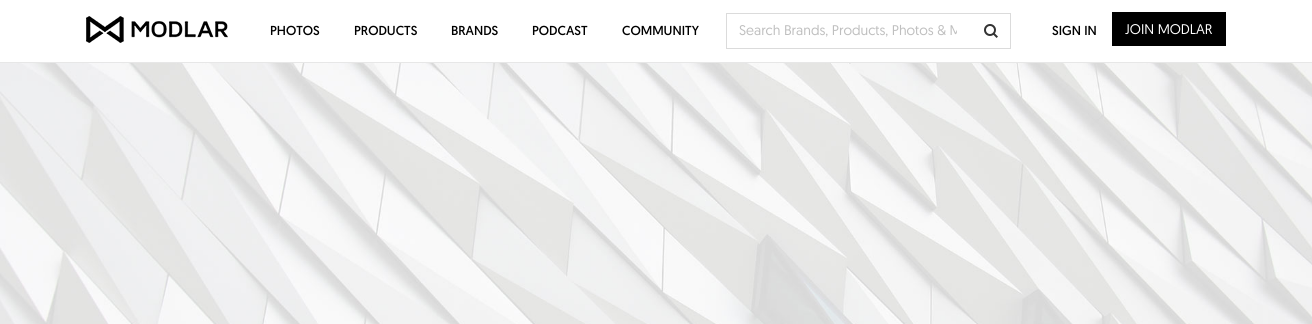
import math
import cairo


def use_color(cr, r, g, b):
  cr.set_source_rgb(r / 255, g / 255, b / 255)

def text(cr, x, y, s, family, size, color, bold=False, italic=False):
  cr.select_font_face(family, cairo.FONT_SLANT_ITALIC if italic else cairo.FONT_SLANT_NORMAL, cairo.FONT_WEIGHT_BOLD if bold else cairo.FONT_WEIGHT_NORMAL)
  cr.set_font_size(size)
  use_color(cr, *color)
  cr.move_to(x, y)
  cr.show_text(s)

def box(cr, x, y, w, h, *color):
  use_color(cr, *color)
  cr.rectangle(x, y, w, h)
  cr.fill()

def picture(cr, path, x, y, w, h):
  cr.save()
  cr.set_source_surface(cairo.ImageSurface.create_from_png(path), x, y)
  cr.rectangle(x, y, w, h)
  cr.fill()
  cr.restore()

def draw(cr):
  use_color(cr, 255, 255, 255)
  cr.paint()
  box(cr, 0, 62, 1312, 1, 231, 231, 231)
  picture(cr, "img_01.png", 86, 16, 142, 27)
  cr.rectangle(726.5, 13.5, 284, 35)
  use_color(cr, 219, 219, 219)
  cr.set_line_width(1)
  cr.stroke()
  picture(cr, "img_02.png", 984, 24, 14, 14)
  box(cr, 1112, 12, 114, 34, 0, 0, 0)
  picture(cr, "img_03.png", 0, 63, 1312, 261)
  text(cr, 270, 35, "PHOTOS", "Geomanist", 13, (0, 0, 0))
  text(cr, 354, 35, "PRODUCTS", "Geomanist", 13, (0, 0, 0))
  text(cr, 451, 35, "BRANDS", "Geomanist", 13, (0, 0, 0))
  text(cr, 532, 35, "PODCAST", "Geomanist", 13, (0, 0, 0))
  text(cr, 622, 35, "COMMUNITY", "Geomanist", 13, (0, 0, 0))
  cr.save()
  cr.rectangle(739, 21, 218, 18)
  cr.clip()
  text(cr, 739, 35, "Search Brands, Products, Photos & M", "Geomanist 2", 14, (191, 191, 191))
  cr.restore()
  text(cr, 1052, 35, "SIGN IN", "Geomanist", 13, (0, 0, 0))
  text(cr, 1125, 34, "JOIN MODLAR", "Geomanist 2", 14, (255, 255, 255))


surface = cairo.ImageSurface(cairo.FORMAT_RGB24, 1312, 324)
cr = cairo.Context(surface)
options = cairo.FontOptions()
options.set_hint_metrics(cairo.HINT_METRICS_OFF)
options.set_hint_style(cairo.HINT_STYLE_NONE)
cr.set_font_options(options)
cr.set_miter_limit(4)
draw(cr)
surface.write_to_png("out.png")
